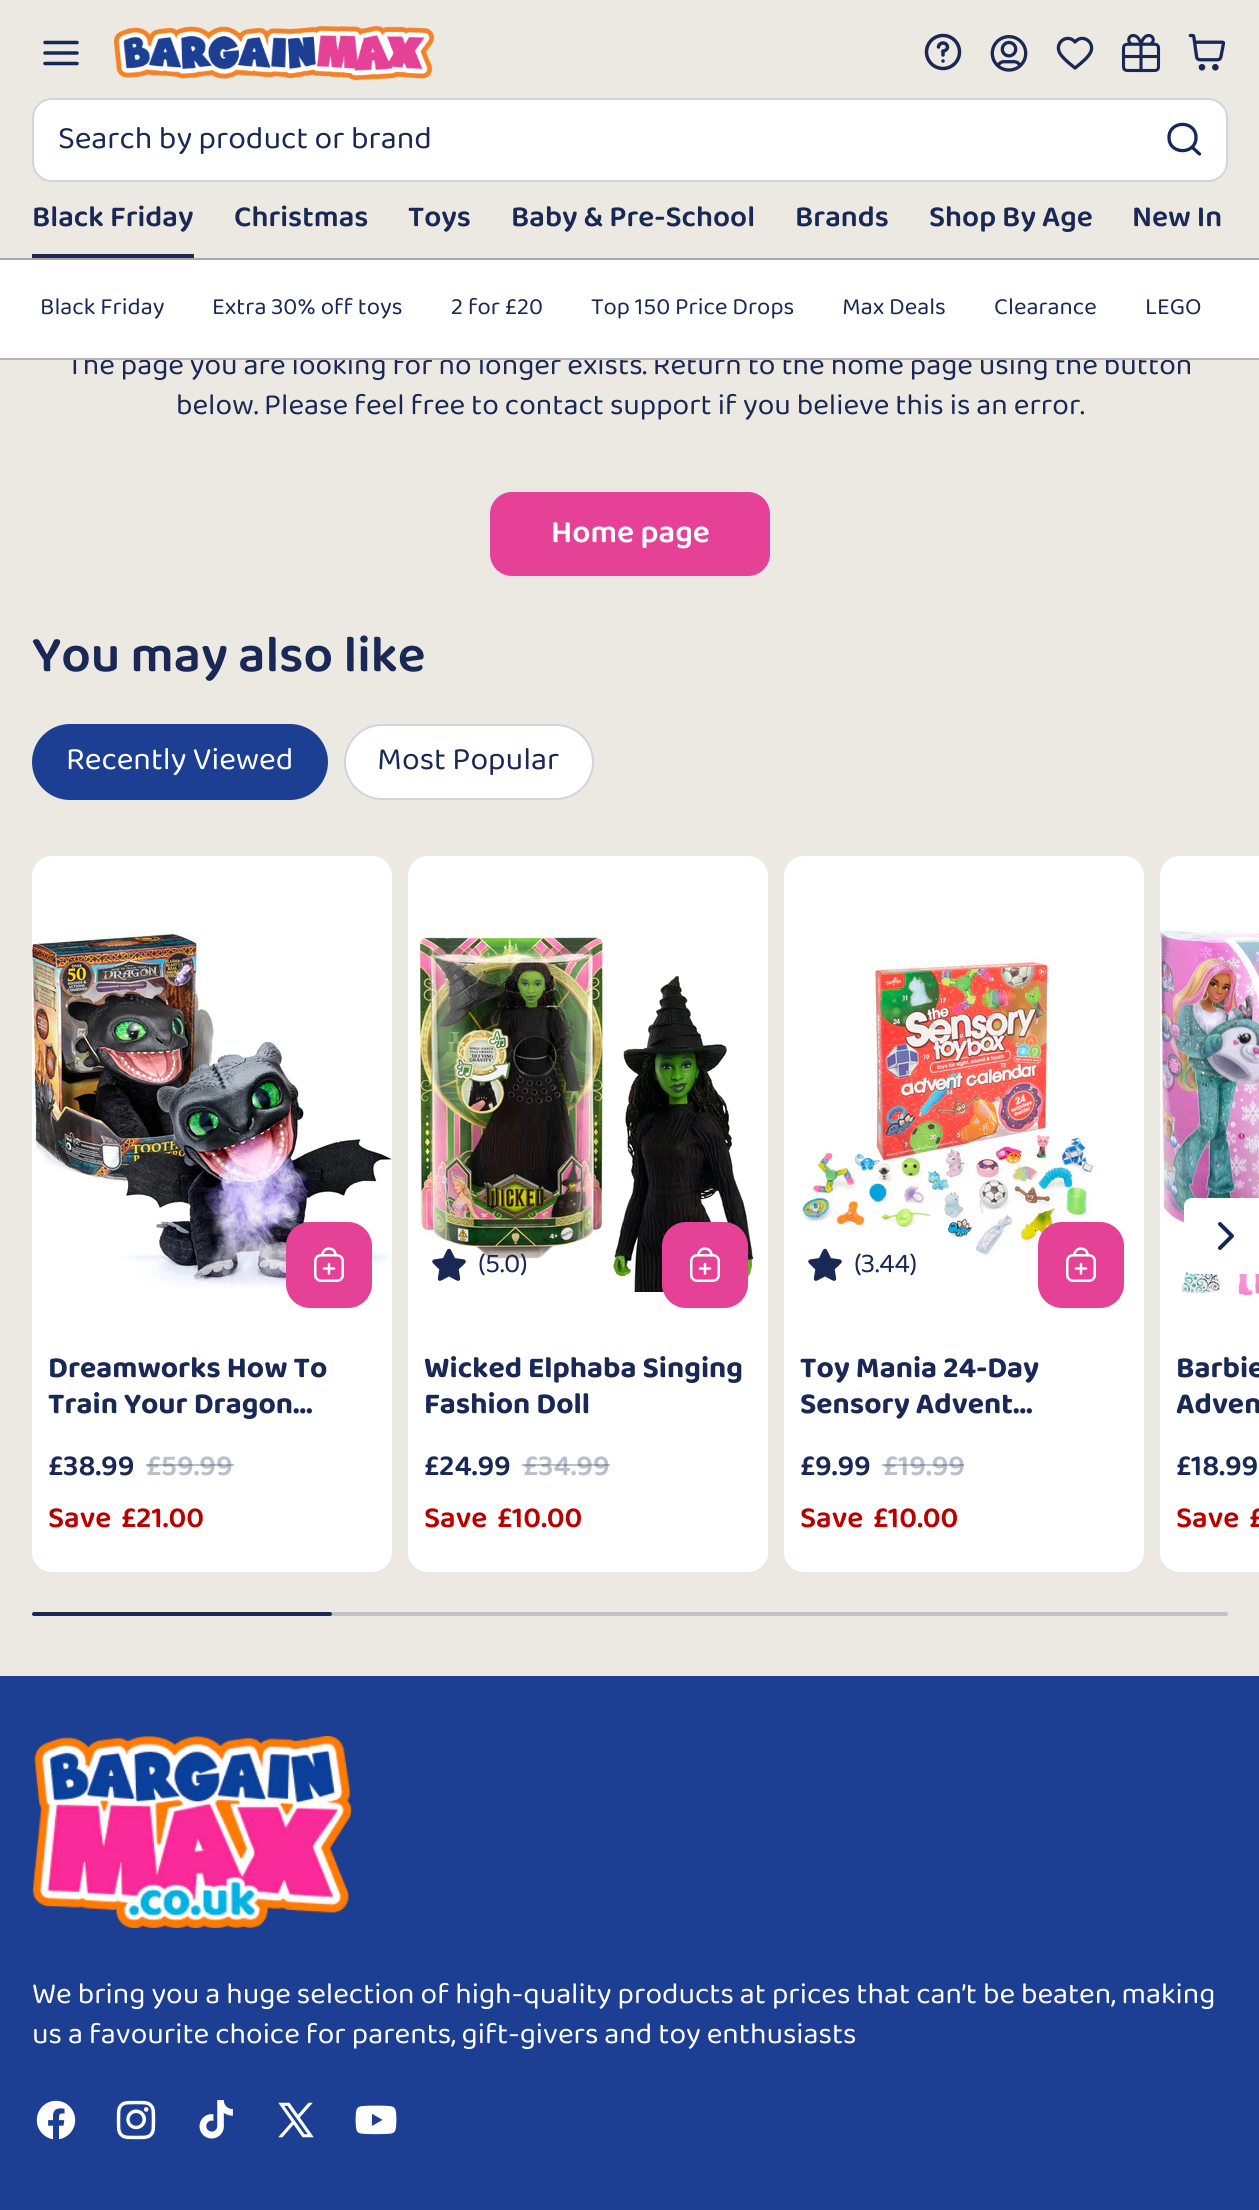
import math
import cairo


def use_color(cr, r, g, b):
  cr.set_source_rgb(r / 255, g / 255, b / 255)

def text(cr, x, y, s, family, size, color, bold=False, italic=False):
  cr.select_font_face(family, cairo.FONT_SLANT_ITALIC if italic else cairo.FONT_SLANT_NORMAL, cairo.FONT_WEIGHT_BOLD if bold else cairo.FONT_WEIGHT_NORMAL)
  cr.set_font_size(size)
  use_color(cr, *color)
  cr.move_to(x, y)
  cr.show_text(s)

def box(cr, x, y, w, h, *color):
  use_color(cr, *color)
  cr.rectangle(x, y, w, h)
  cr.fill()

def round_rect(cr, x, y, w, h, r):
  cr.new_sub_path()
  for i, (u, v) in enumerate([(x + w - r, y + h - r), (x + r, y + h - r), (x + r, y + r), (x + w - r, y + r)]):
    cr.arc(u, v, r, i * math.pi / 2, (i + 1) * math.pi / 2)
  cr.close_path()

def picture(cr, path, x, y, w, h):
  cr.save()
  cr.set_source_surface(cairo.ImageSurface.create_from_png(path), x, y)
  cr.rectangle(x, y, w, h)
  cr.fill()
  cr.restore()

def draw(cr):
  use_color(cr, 236, 233, 226)
  cr.paint()
  box(cr, 0, 258, 1259, 2, 174, 164, 164)
  cr.new_path()
  cr.move_to(45, 53)
  cr.line_to(77, 53)
  cr.move_to(45, 42.5)
  cr.line_to(77, 42.5)
  cr.move_to(45, 63.5)
  cr.line_to(77, 63.5)
  use_color(cr, 20, 41, 88)
  cr.set_line_width(3.5)
  cr.set_line_cap(cairo.LINE_CAP_ROUND)
  cr.set_line_join(cairo.LINE_JOIN_ROUND)
  cr.stroke()
  picture(cr, "img_01.png", 114, 26, 320, 55)
  picture(cr, "img_02.png", 924, 33, 38, 38)
  picture(cr, "img_03.png", 990, 35, 38, 37)
  cr.new_path()
  cr.move_to(1075, 42)
  cr.curve_to(1067.5, 33, 1054.5, 42.5, 1059.5, 52.5)
  cr.curve_to(1061.5, 56.5, 1066, 60.5, 1069.5, 63.5)
  cr.line_to(1075, 68)
  cr.line_to(1080.5, 63.5)
  cr.curve_to(1084, 60.5, 1088.5, 56.5, 1090.5, 52.5)
  cr.curve_to(1095.5, 42.5, 1082.5, 33, 1075, 42)
  cr.close_path()
  use_color(cr, 25, 40, 85)
  cr.set_line_width(3.3)
  cr.stroke()
  picture(cr, "img_04.png", 1121, 33, 40, 40)
  picture(cr, "img_05.png", 1188, 33, 38, 38)
  use_color(cr, 255, 255, 255)
  round_rect(cr, 32, 98, 1196, 84, 20)
  cr.fill()
  round_rect(cr, 33, 99, 1194, 82, 19)
  cr.set_source_rgba(0.098, 0.157, 0.333, 0.2)
  cr.set_line_width(2)
  cr.set_line_cap(cairo.LINE_CAP_BUTT)
  cr.set_line_join(cairo.LINE_JOIN_MITER)
  cr.stroke()
  cr.new_path()
  cr.move_to(1199.5, 154)
  cr.line_to(1192, 147)
  cr.move_to(1196, 137.5)
  cr.curve_to(1196, 155, 1169, 155, 1169, 137.5)
  cr.curve_to(1169, 120, 1196, 120, 1196, 137.5)
  cr.close_path()
  use_color(cr, 20, 41, 88)
  cr.set_line_width(3.3)
  cr.set_line_cap(cairo.LINE_CAP_ROUND)
  cr.set_line_join(cairo.LINE_JOIN_ROUND)
  cr.stroke()
  box(cr, 32, 254, 162, 4, 25, 40, 85)
  use_color(cr, 229, 65, 150)
  round_rect(cr, 489, 491, 282, 86, 23)
  cr.fill_preserve()
  use_color(cr, 229, 231, 235)
  cr.set_line_width(2)
  cr.set_line_cap(cairo.LINE_CAP_BUTT)
  cr.set_line_join(cairo.LINE_JOIN_MITER)
  cr.stroke()
  use_color(cr, 28, 63, 148)
  round_rect(cr, 33, 725, 294, 74, 37)
  cr.fill_preserve()
  cr.stroke()
  use_color(cr, 255, 255, 255)
  round_rect(cr, 344, 724, 250, 76, 38)
  cr.fill()
  round_rect(cr, 345, 725, 248, 74, 37)
  cr.set_source_rgba(0.098, 0.157, 0.333, 0.2)
  cr.stroke()
  use_color(cr, 255, 255, 255)
  cr.new_path()
  cr.move_to(1180, 856)
  cr.line_to(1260, 856)
  cr.line_to(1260, 1572)
  cr.line_to(1180, 1572)
  cr.curve_to(1169, 1572, 1160, 1563, 1160, 1552)
  cr.line_to(1160, 876)
  cr.curve_to(1160, 865, 1169, 856, 1180, 856)
  cr.close_path()
  cr.fill()
  picture(cr, "img_11.png", 1160, 930, 99, 366)
  cr.new_path()
  cr.move_to(1192, 1198)
  cr.line_to(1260, 1198)
  cr.line_to(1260, 1274)
  cr.line_to(1192, 1274)
  cr.curve_to(1187.5, 1274, 1184, 1270.5, 1184, 1266)
  cr.line_to(1184, 1206)
  cr.curve_to(1184, 1201.5, 1187.5, 1198, 1192, 1198)
  cr.close_path()
  cr.fill()
  cr.new_path()
  cr.move_to(1220, 1224)
  cr.line_to(1232, 1236)
  cr.line_to(1220, 1248)
  use_color(cr, 20, 41, 88)
  cr.set_line_width(4)
  cr.set_line_cap(cairo.LINE_CAP_ROUND)
  cr.set_line_join(cairo.LINE_JOIN_ROUND)
  cr.stroke()
  use_color(cr, 255, 255, 255)
  round_rect(cr, 32, 856, 360, 716, 20)
  cr.fill()
  picture(cr, "img_06.png", 32, 934, 360, 354)
  use_color(cr, 229, 65, 150)
  round_rect(cr, 287, 1223, 84, 84, 23)
  cr.fill_preserve()
  cr.set_line_width(2)
  cr.set_line_cap(cairo.LINE_CAP_BUTT)
  cr.set_line_join(cairo.LINE_JOIN_MITER)
  cr.stroke()
  cr.new_path()
  cr.move_to(329, 1273.5)
  cr.line_to(329, 1264)
  cr.move_to(324, 1268.5)
  cr.line_to(334, 1268.5)
  cr.move_to(322.5, 1255)
  cr.curve_to(322.5, 1246.5, 335.5, 1246.5, 335.5, 1255)
  use_color(cr, 255, 255, 255)
  cr.set_line_width(2.5)
  cr.set_line_cap(cairo.LINE_CAP_ROUND)
  cr.set_line_join(cairo.LINE_JOIN_ROUND)
  cr.stroke()
  round_rect(cr, 315.25, 1255.25, 27.5, 25.5, 5.75)
  cr.set_line_cap(cairo.LINE_CAP_BUTT)
  cr.set_line_join(cairo.LINE_JOIN_MITER)
  cr.stroke()
  round_rect(cr, 408, 856, 360, 716, 20)
  cr.fill()
  picture(cr, "img_07.png", 416, 932, 339, 360)
  picture(cr, "img_08.png", 432, 1248, 34, 33)
  use_color(cr, 229, 65, 150)
  round_rect(cr, 663, 1223, 84, 84, 23)
  cr.fill_preserve()
  cr.set_line_width(2)
  cr.stroke()
  cr.new_path()
  cr.move_to(705, 1273.5)
  cr.line_to(705, 1264)
  cr.move_to(700, 1268.5)
  cr.line_to(710, 1268.5)
  cr.move_to(698.5, 1255)
  cr.curve_to(698.5, 1246.5, 711.5, 1246.5, 711.5, 1255)
  use_color(cr, 255, 255, 255)
  cr.set_line_width(2.5)
  cr.set_line_cap(cairo.LINE_CAP_ROUND)
  cr.set_line_join(cairo.LINE_JOIN_ROUND)
  cr.stroke()
  round_rect(cr, 691.25, 1255.25, 27.5, 25.5, 5.75)
  cr.set_line_cap(cairo.LINE_CAP_BUTT)
  cr.set_line_join(cairo.LINE_JOIN_MITER)
  cr.stroke()
  round_rect(cr, 784, 856, 360, 716, 20)
  cr.fill()
  picture(cr, "img_09.png", 800, 956, 296, 300)
  picture(cr, "img_10.png", 808, 1248, 34, 33)
  use_color(cr, 229, 65, 150)
  round_rect(cr, 1039, 1223, 84, 84, 23)
  cr.fill_preserve()
  cr.set_line_width(2)
  cr.stroke()
  cr.new_path()
  cr.move_to(1081, 1273.5)
  cr.line_to(1081, 1264)
  cr.move_to(1076, 1268.5)
  cr.line_to(1086, 1268.5)
  cr.move_to(1074.5, 1255)
  cr.curve_to(1074.5, 1246.5, 1087.5, 1246.5, 1087.5, 1255)
  use_color(cr, 255, 255, 255)
  cr.set_line_width(2.5)
  cr.set_line_cap(cairo.LINE_CAP_ROUND)
  cr.set_line_join(cairo.LINE_JOIN_ROUND)
  cr.stroke()
  round_rect(cr, 1067.25, 1255.25, 27.5, 25.5, 5.75)
  cr.set_line_cap(cairo.LINE_CAP_BUTT)
  cr.set_line_join(cairo.LINE_JOIN_MITER)
  cr.stroke()
  use_color(cr, 194, 194, 198)
  round_rect(cr, 32, 1612, 1196, 4, 2)
  cr.fill()
  use_color(cr, 25, 40, 85)
  round_rect(cr, 32, 1612, 300, 4, 2)
  cr.fill()
  box(cr, 0, 1676, 1259, 534, 28, 63, 148)
  picture(cr, "img_12.png", 32, 1736, 320, 192)
  picture(cr, "img_13.png", 36, 2100, 40, 40)
  picture(cr, "img_14.png", 116, 2100, 40, 40)
  picture(cr, "img_15.png", 199, 2100, 34, 39)
  picture(cr, "img_16.png", 278, 2102, 36, 36)
  picture(cr, "img_17.png", 355, 2105, 42, 30)
  text(cr, 58, 148, "Search by product or brand", "Baloo 2", 32, (25, 40, 85))
  text(cr, 32, 226, "Black Friday", "Baloo 2 SemiBold", 30, (25, 40, 85))
  text(cr, 234, 226, "Christmas", "Baloo 2 SemiBold", 30, (25, 40, 85))
  text(cr, 408, 226, "Toys", "Baloo 2 SemiBold", 30, (25, 40, 85))
  text(cr, 511, 226, "Baby & Pre-School", "Baloo 2 SemiBold", 30, (25, 40, 85))
  text(cr, 795, 226, "Brands", "Baloo 2 SemiBold", 30, (25, 40, 85))
  text(cr, 929, 226, "Shop By Age", "Baloo 2 SemiBold", 30, (25, 40, 85))
  text(cr, 1132, 226, "New In", "Baloo 2 SemiBold", 30, (25, 40, 85))
  text(cr, 67, 374, "The page you are looking for no longer exists. Return to the home page using the button", "Baloo 2", 30, (25, 40, 85))
  box(cr, 0, 358, 1259, 2, 187, 178, 183)
  box(cr, 0, 260, 1259, 98, 255, 255, 255)
  text(cr, 1145, 314, "LEGO", "Baloo 2", 24, (25, 40, 85))
  text(cr, 994, 314, "Clearance", "Baloo 2", 24, (25, 40, 85))
  text(cr, 842, 314, "Max Deals", "Baloo 2", 24, (25, 40, 85))
  text(cr, 591, 314, "Top 150 Price Drops", "Baloo 2", 24, (25, 40, 85))
  text(cr, 451, 314, "2 for £20", "Baloo 2", 24, (25, 40, 85))
  text(cr, 212, 314, "Extra 30% off toys", "Baloo 2", 24, (25, 40, 85))
  text(cr, 40, 314, "Black Friday", "Baloo 2", 24, (25, 40, 85))
  text(cr, 176, 414, "below. Please feel free to contact support if you believe this is an error.", "Baloo 2", 30, (25, 40, 85))
  text(cr, 551, 542, "Home page", "Baloo 2 SemiBold", 32, (255, 255, 255))
  text(cr, 32, 671, "You may also like", "Baloo 2 SemiBold", 52, (25, 40, 85))
  text(cr, 66, 769, "Recently Viewed", "Baloo 2", 32, (255, 255, 255))
  text(cr, 377, 769, "Most Popular", "Baloo 2", 32, (25, 40, 85))
  text(cr, 48, 1377, "Dreamworks How To", "Baloo 2", 30, (25, 40, 85), bold=True)
  text(cr, 48, 1413, "Train Your Dragon…", "Baloo 2", 30, (25, 40, 85), bold=True)
  text(cr, 48, 1475, "£38.99", "Baloo 2 SemiBold", 30, (25, 40, 85))
  text(cr, 146, 1475, "£59.99", "Baloo 2 SemiBold", 30, (186, 191, 204))
  cr.set_source_rgba(0.098, 0.157, 0.333, 0.3)
  cr.rectangle(146, 1464, 88, 2)
  cr.fill()
  text(cr, 48, 1527, "Save", "Baloo 2 SemiBold", 30, (187, 0, 0))
  text(cr, 121, 1527, "£21.00", "Baloo 2 SemiBold", 30, (187, 0, 0))
  text(cr, 478, 1272, "(5.0)", "Baloo 2", 28, (25, 40, 85))
  text(cr, 424, 1377, "Wicked Elphaba Singing", "Baloo 2", 30, (25, 40, 85), bold=True)
  text(cr, 424, 1413, "Fashion Doll", "Baloo 2", 30, (25, 40, 85), bold=True)
  text(cr, 424, 1475, "£24.99", "Baloo 2 SemiBold", 30, (25, 40, 85))
  text(cr, 523, 1475, "£34.99", "Baloo 2 SemiBold", 30, (186, 191, 204))
  cr.set_source_rgba(0.098, 0.157, 0.333, 0.3)
  cr.rectangle(522, 1464, 88, 2)
  cr.fill()
  text(cr, 424, 1527, "Save", "Baloo 2 SemiBold", 30, (187, 0, 0))
  text(cr, 497, 1527, "£10.00", "Baloo 2 SemiBold", 30, (187, 0, 0))
  text(cr, 854, 1272, "(3.44)", "Baloo 2", 28, (25, 40, 85))
  text(cr, 800, 1377, "Toy Mania 24-Day", "Baloo 2", 30, (25, 40, 85), bold=True)
  text(cr, 800, 1413, "Sensory Advent…", "Baloo 2", 30, (25, 40, 85), bold=True)
  text(cr, 800, 1475, "£9.99", "Baloo 2 SemiBold", 30, (25, 40, 85))
  text(cr, 883, 1475, "£19.99", "Baloo 2 SemiBold", 30, (186, 191, 204))
  cr.set_source_rgba(0.098, 0.157, 0.333, 0.3)
  cr.rectangle(882, 1464, 82, 2)
  cr.fill()
  text(cr, 800, 1527, "Save", "Baloo 2 SemiBold", 30, (187, 0, 0))
  text(cr, 873, 1527, "£10.00", "Baloo 2 SemiBold", 30, (187, 0, 0))
  text(cr, 1176, 1377, "Barbie", "Baloo 2", 30, (25, 40, 85), bold=True)
  text(cr, 1176, 1413, "Adven", "Baloo 2", 30, (25, 40, 85), bold=True)
  text(cr, 1176, 1475, "£18.99", "Baloo 2 SemiBold", 30, (25, 40, 85))
  text(cr, 1176, 1527, "Save", "Baloo 2 SemiBold", 30, (187, 0, 0))
  text(cr, 1249, 1527, "£", "Baloo 2 SemiBold", 30, (187, 0, 0))
  text(cr, 32, 2003, "We bring you a huge selection of high-quality products at prices that can’t be beaten, making", "Baloo 2", 30, (255, 255, 255))
  text(cr, 32, 2043, "us a favourite choice for parents, gift-givers and toy enthusiasts", "Baloo 2", 30, (255, 255, 255))


surface = cairo.ImageSurface(cairo.FORMAT_RGB24, 1259, 2210)
cr = cairo.Context(surface)
options = cairo.FontOptions()
options.set_hint_metrics(cairo.HINT_METRICS_OFF)
options.set_hint_style(cairo.HINT_STYLE_NONE)
cr.set_font_options(options)
cr.set_miter_limit(4)
draw(cr)
surface.write_to_png("out.png")
